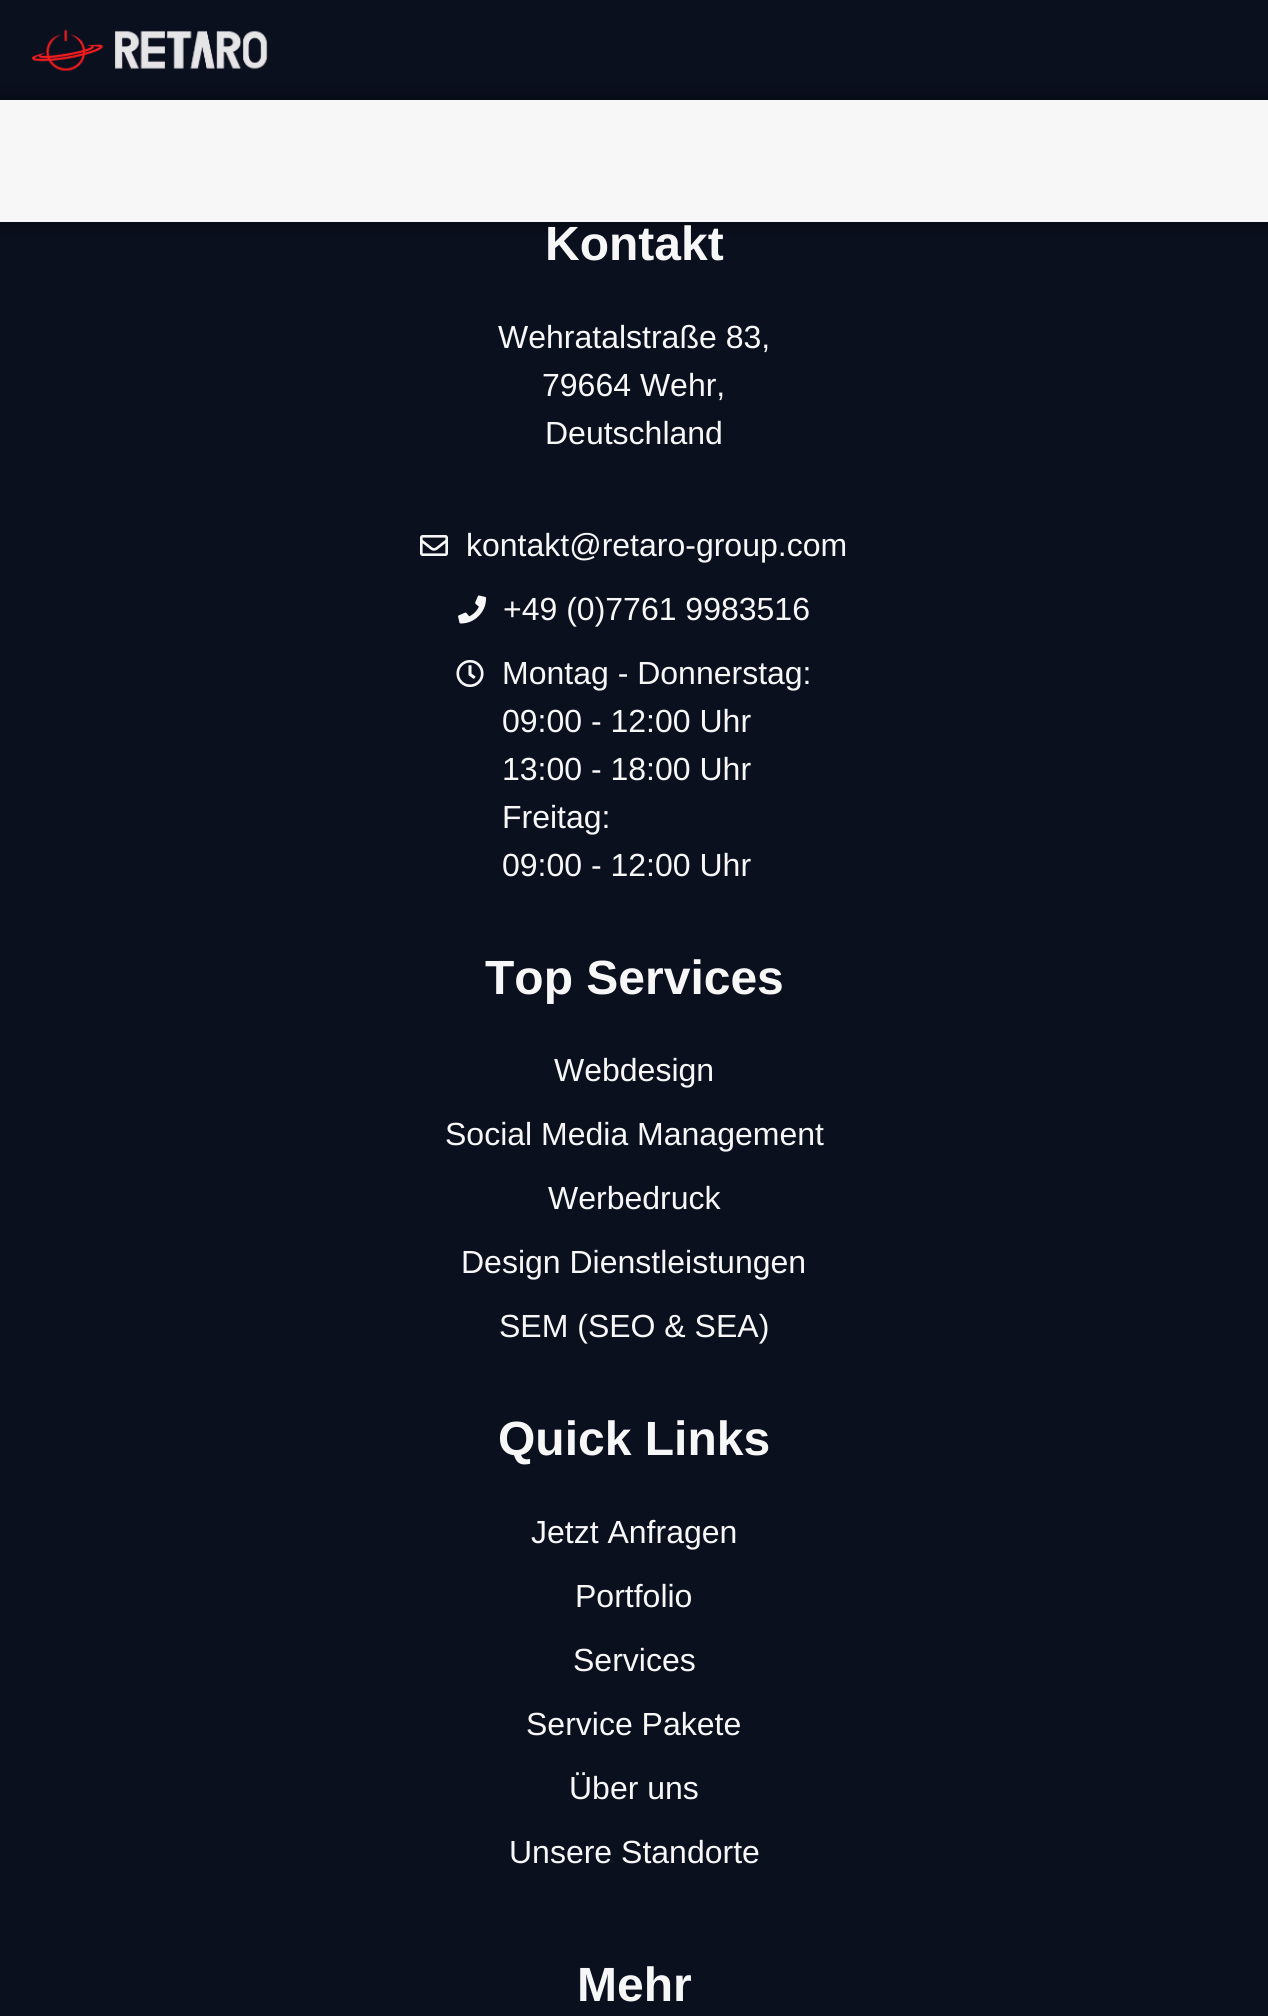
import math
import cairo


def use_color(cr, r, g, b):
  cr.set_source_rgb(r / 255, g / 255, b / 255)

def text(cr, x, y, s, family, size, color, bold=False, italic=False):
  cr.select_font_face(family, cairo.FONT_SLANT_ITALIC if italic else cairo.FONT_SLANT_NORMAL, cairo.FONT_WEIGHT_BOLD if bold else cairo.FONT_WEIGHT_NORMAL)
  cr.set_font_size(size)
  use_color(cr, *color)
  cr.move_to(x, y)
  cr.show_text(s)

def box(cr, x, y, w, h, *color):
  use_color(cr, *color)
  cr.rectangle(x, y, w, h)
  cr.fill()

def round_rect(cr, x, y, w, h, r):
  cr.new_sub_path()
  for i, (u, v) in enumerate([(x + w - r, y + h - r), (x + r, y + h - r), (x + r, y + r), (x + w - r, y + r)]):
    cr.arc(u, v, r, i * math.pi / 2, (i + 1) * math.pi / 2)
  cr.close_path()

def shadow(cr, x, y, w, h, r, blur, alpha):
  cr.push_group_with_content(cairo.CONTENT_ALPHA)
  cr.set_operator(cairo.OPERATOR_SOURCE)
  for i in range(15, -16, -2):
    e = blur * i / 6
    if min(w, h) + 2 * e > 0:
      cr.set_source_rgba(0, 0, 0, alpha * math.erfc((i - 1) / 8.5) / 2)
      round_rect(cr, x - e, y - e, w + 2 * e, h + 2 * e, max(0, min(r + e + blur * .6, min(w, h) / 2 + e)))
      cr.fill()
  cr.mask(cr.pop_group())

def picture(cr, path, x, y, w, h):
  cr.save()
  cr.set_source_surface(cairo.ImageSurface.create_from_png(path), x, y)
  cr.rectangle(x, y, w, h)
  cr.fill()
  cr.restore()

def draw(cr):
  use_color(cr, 11, 16, 31)
  cr.paint()
  picture(cr, "img_01.png", 32, 29, 236, 43)
  use_color(cr, 0, 0, 0)
  shadow(cr, -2, 98, 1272, 126, 0, 10, 0.5)
  box(cr, 0, 100, 1268, 122, 247, 247, 247)
  picture(cr, "img_02.png", 420, 535, 28, 21)
  picture(cr, "img_03.png", 458, 595, 29, 29)
  picture(cr, "img_04.png", 456, 660, 28, 27)
  text(cr, 545, 260, "Kontakt", "Liberation Sans", 48, (247, 247, 247), bold=True)
  text(cr, 498, 348, "Wehratalstraße 83,", "Liberation Sans", 32, (247, 247, 247))
  text(cr, 542, 396, "79664 Wehr,", "Liberation Sans", 32, (247, 247, 247))
  text(cr, 545, 444, "Deutschland", "Liberation Sans", 32, (247, 247, 247))
  text(cr, 466, 556, "kontakt@retaro-group.com", "Liberation Sans", 32, (247, 247, 247))
  text(cr, 503, 620, "+49 (0)7761 9983516", "Liberation Sans", 32, (247, 247, 247))
  text(cr, 502, 684, "Montag - Donnerstag:", "Liberation Sans", 32, (247, 247, 247))
  text(cr, 502, 732, "09:00 - 12:00 Uhr", "Liberation Sans", 32, (247, 247, 247))
  text(cr, 502, 780, "13:00 - 18:00 Uhr", "Liberation Sans", 32, (247, 247, 247))
  text(cr, 502, 828, "Freitag:", "Liberation Sans", 32, (247, 247, 247))
  text(cr, 502, 876, "09:00 - 12:00 Uhr", "Liberation Sans", 32, (247, 247, 247))
  text(cr, 485, 994, "Top Services", "Liberation Sans", 48, (247, 247, 247), bold=True)
  text(cr, 554, 1081, "Webdesign", "Liberation Sans", 32, (247, 247, 247))
  text(cr, 445, 1145, "Social Media Management", "Liberation Sans", 32, (247, 247, 247))
  text(cr, 548, 1209, "Werbedruck", "Liberation Sans", 32, (247, 247, 247))
  text(cr, 461, 1273, "Design Dienstleistungen", "Liberation Sans", 32, (247, 247, 247))
  text(cr, 499, 1337, "SEM (SEO & SEA)", "Liberation Sans", 32, (247, 247, 247))
  text(cr, 498, 1455, "Quick Links", "Liberation Sans", 48, (247, 247, 247), bold=True)
  text(cr, 531, 1543, "Jetzt Anfragen", "Liberation Sans", 32, (247, 247, 247))
  text(cr, 575, 1607, "Portfolio", "Liberation Sans", 32, (247, 247, 247))
  text(cr, 573, 1671, "Services", "Liberation Sans", 32, (247, 247, 247))
  text(cr, 526, 1735, "Service Pakete", "Liberation Sans", 32, (247, 247, 247))
  text(cr, 569, 1799, "Über uns", "Liberation Sans", 32, (247, 247, 247))
  text(cr, 509, 1863, "Unsere Standorte", "Liberation Sans", 32, (247, 247, 247))
  text(cr, 577, 2001, "Mehr", "Liberation Sans", 48, (247, 247, 247), bold=True)


surface = cairo.ImageSurface(cairo.FORMAT_RGB24, 1268, 2016)
cr = cairo.Context(surface)
options = cairo.FontOptions()
options.set_hint_metrics(cairo.HINT_METRICS_OFF)
options.set_hint_style(cairo.HINT_STYLE_NONE)
cr.set_font_options(options)
cr.set_miter_limit(4)
draw(cr)
surface.write_to_png("out.png")
